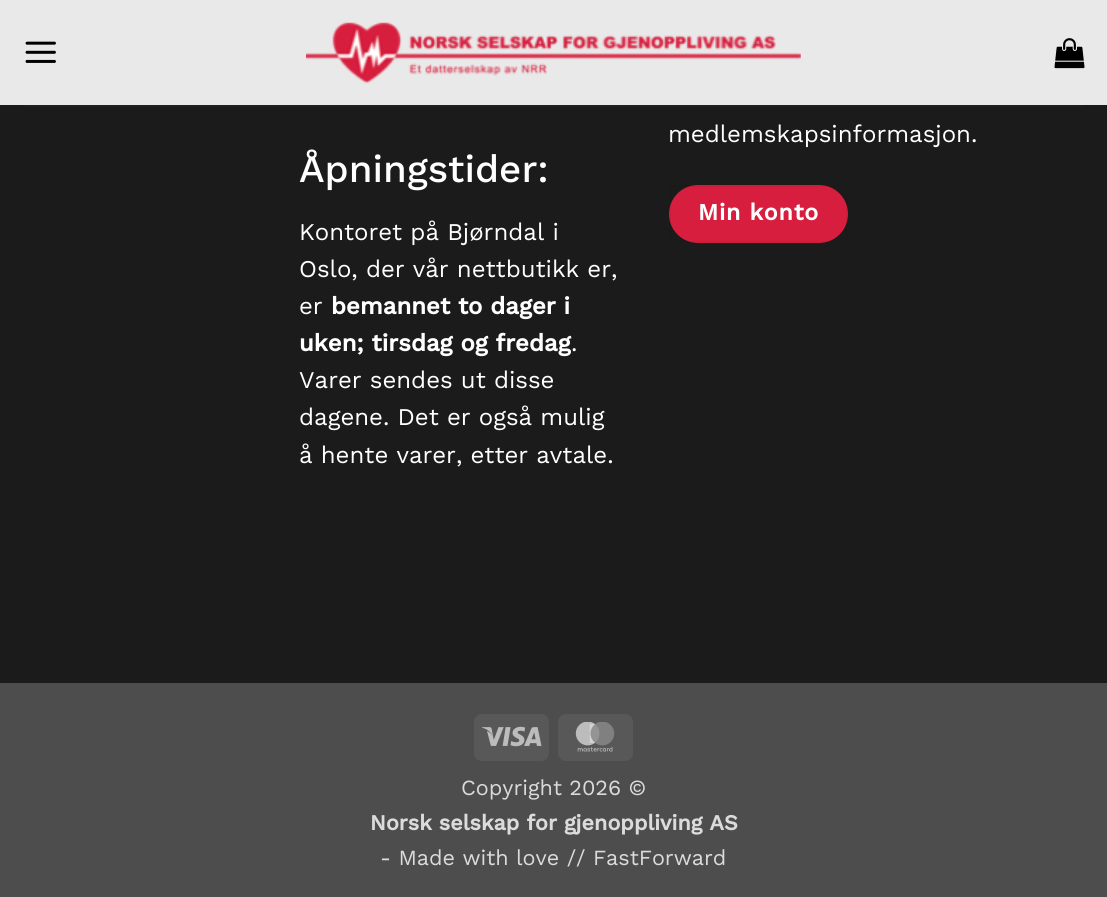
import math
import cairo


def use_color(cr, r, g, b):
  cr.set_source_rgb(r / 255, g / 255, b / 255)

def text(cr, x, y, s, family, size, color, bold=False, italic=False):
  cr.select_font_face(family, cairo.FONT_SLANT_ITALIC if italic else cairo.FONT_SLANT_NORMAL, cairo.FONT_WEIGHT_BOLD if bold else cairo.FONT_WEIGHT_NORMAL)
  cr.set_font_size(size)
  use_color(cr, *color)
  cr.move_to(x, y)
  cr.show_text(s)

def spaced_text(cr, x, y, s, letter, word):
  cr.move_to(x, y)
  for ch in s:
    cr.show_text(ch)
    cr.rel_move_to(letter + word * (ch == ' '), 0)

def box(cr, x, y, w, h, *color):
  use_color(cr, *color)
  cr.rectangle(x, y, w, h)
  cr.fill()

def round_rect(cr, x, y, w, h, r):
  cr.new_sub_path()
  for i, (u, v) in enumerate([(x + w - r, y + h - r), (x + r, y + h - r), (x + r, y + r), (x + w - r, y + r)]):
    cr.arc(u, v, r, i * math.pi / 2, (i + 1) * math.pi / 2)
  cr.close_path()

def picture(cr, path, x, y, w, h):
  cr.save()
  cr.set_source_surface(cairo.ImageSurface.create_from_png(path), x, y)
  cr.rectangle(x, y, w, h)
  cr.fill()
  cr.restore()

def draw(cr):
  use_color(cr, 77, 77, 77)
  cr.paint()
  box(cr, 0, 0, 1107, 683, 27, 27, 27)
  cr.set_source_rgba(1, 1, 1, 0.9)
  cr.rectangle(0, 0, 1107, 105)
  cr.fill()
  picture(cr, "img_01.png", 25, 41, 31, 22)
  picture(cr, "img_02.png", 306, 22, 495, 62)
  picture(cr, "img_03.png", 1054, 38, 31, 31)
  cr.set_source_rgba(0.29, 0.29, 0.29, 0.1)
  cr.rectangle(23, 105, 1062, 2)
  cr.fill()
  use_color(cr, 215, 30, 62)
  round_rect(cr, 669, 185, 179, 58, 29)
  cr.fill()
  cr.rectangle(670, 186, 177, 56)
  cr.set_source_rgba(0, 0, 0, 0.05)
  cr.stroke()
  use_color(cr, 88, 88, 88)
  round_rect(cr, 474, 714, 75, 47, 8)
  cr.fill()
  picture(cr, "img_04.png", 482, 726, 60, 21)
  round_rect(cr, 558, 714, 75, 47, 8)
  cr.fill()
  picture(cr, "img_05.png", 575, 722, 40, 30)
  text(cr, 299, 182, "Åpningstider:", "Work Sans Medium", 38.5, (255, 255, 255))
  text(cr, 299, 240, "Kontoret på Bjørndal i", "Work Sans", 24, (255, 255, 255))
  text(cr, 299, 277, "Oslo, der vår nettbutikk er,", "Work Sans", 24, (255, 255, 255))
  text(cr, 299, 314, "er", "Work Sans", 24, (255, 255, 255))
  text(cr, 331, 314, "bemannet to dager i", "Work Sans", 24, (255, 255, 255), bold=True)
  text(cr, 299, 351, "uken; tirsdag og fredag", "Work Sans", 24, (255, 255, 255), bold=True)
  text(cr, 571, 351, ".", "Work Sans", 24, (255, 255, 255))
  text(cr, 299, 388, "Varer sendes ut disse", "Work Sans", 24, (255, 255, 255))
  text(cr, 299, 425, "dagene. Det er også mulig", "Work Sans", 24, (255, 255, 255))
  text(cr, 299, 463, "å hente varer, etter avtale.", "Work Sans", 24, (255, 255, 255))
  text(cr, 668, 142, "medlemskapsinformasjon.", "Work Sans", 24, (255, 255, 255))
  cr.select_font_face("Work Sans", cairo.FONT_SLANT_NORMAL, cairo.FONT_WEIGHT_BOLD)
  cr.set_font_size(23.25)
  spaced_text(cr, 698, 220, "Min konto", 0.75, 0)
  text(cr, 461, 795, "Copyright 2026 ©", "Work Sans", 21.6, (219, 219, 219))
  text(cr, 370, 830, "Norsk selskap for gjenoppliving AS", "Work Sans", 21.6, (219, 219, 219), bold=True)
  text(cr, 380, 865, "- Made with love // FastForward", "Work Sans", 21.6, (219, 219, 219))


surface = cairo.ImageSurface(cairo.FORMAT_RGB24, 1107, 897)
cr = cairo.Context(surface)
options = cairo.FontOptions()
options.set_hint_metrics(cairo.HINT_METRICS_OFF)
options.set_hint_style(cairo.HINT_STYLE_NONE)
cr.set_font_options(options)
cr.set_miter_limit(4)
draw(cr)
surface.write_to_png("out.png")
